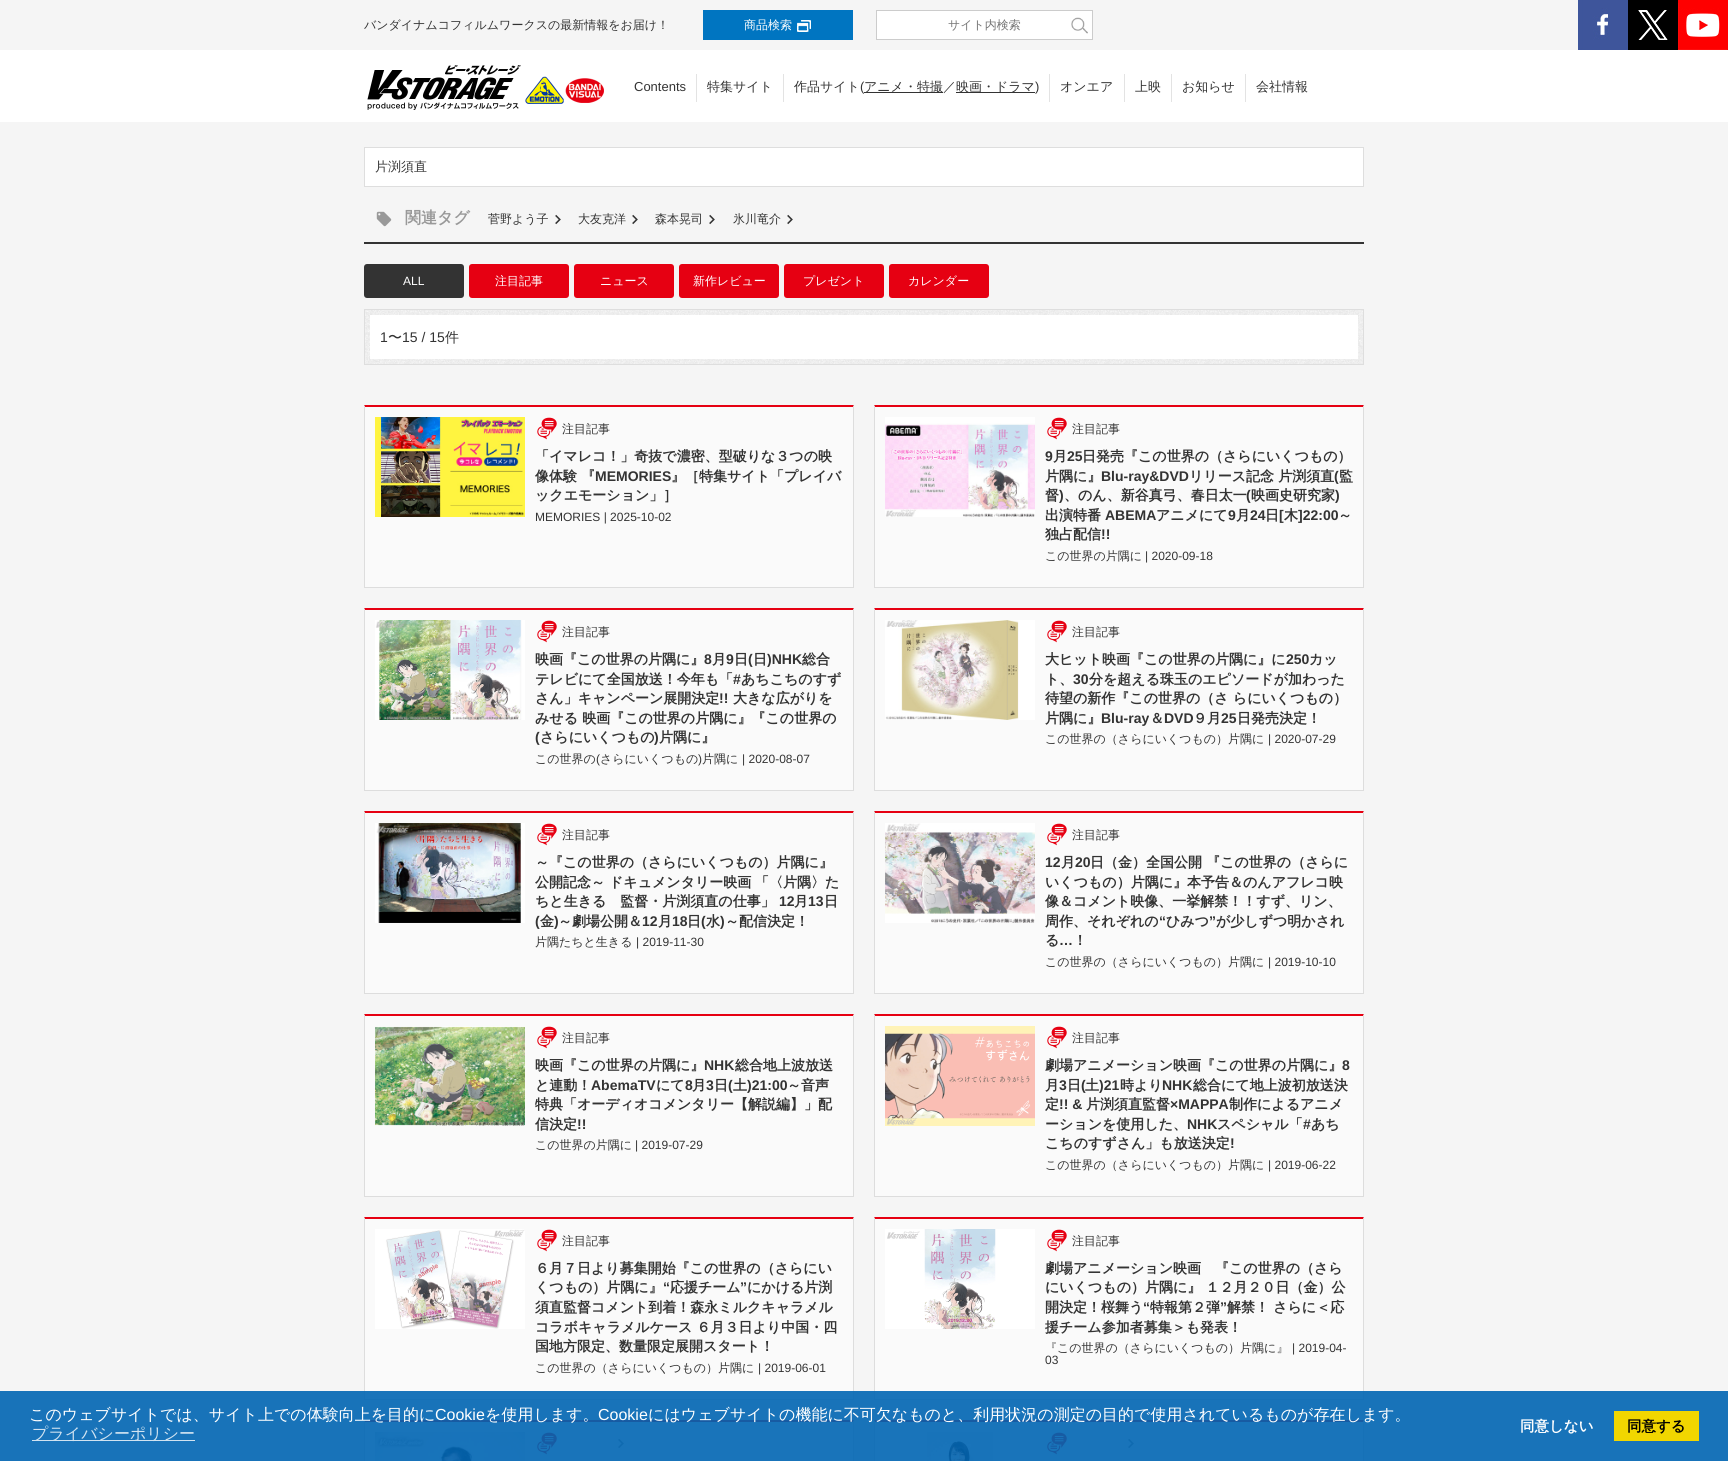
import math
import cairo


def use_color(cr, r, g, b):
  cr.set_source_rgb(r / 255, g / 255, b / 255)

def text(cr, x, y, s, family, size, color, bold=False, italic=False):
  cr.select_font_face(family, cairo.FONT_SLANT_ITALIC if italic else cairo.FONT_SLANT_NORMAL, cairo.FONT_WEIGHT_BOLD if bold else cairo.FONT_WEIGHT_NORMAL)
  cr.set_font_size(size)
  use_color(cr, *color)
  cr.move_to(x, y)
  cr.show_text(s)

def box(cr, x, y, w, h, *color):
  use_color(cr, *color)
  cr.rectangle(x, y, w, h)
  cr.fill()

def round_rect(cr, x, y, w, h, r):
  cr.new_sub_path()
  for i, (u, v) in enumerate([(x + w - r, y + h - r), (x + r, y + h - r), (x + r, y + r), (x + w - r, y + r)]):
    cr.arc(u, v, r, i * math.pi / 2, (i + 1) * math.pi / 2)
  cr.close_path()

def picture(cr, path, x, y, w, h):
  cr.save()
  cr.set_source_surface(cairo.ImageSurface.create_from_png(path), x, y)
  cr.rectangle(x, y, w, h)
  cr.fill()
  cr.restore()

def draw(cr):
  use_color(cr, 245, 245, 245)
  cr.paint()
  box(cr, 0, 50, 1728, 72, 255, 255, 255)
  box(cr, 703, 10, 150, 30, 0, 117, 193)
  picture(cr, "img_01.png", 797, 20, 14, 12)
  box(cr, 877, 11, 215, 28, 255, 255, 255)
  picture(cr, "img_02.png", 1071, 17, 17, 17)
  cr.rectangle(876.5, 10.5, 216, 29)
  use_color(cr, 204, 204, 204)
  cr.set_line_width(1)
  cr.stroke()
  picture(cr, "img_03.png", 1578, 0, 50, 50)
  picture(cr, "img_04.png", 1628, 0, 50, 50)
  picture(cr, "img_05.png", 1678, 0, 50, 50)
  picture(cr, "img_06.png", 367, 65, 237, 45)
  box(cr, 696, 74, 1, 28, 227, 227, 227)
  box(cr, 783, 74, 1, 28, 227, 227, 227)
  box(cr, 864, 92, 79, 1, 51, 51, 51)
  box(cr, 956, 92, 79, 1, 51, 51, 51)
  box(cr, 1049, 74, 1, 28, 227, 227, 227)
  box(cr, 1124, 74, 1, 28, 227, 227, 227)
  box(cr, 1171, 74, 1, 28, 227, 227, 227)
  box(cr, 1245, 74, 1, 28, 227, 227, 227)
  use_color(cr, 255, 255, 255)
  cr.rectangle(364.5, 147.5, 999, 39)
  cr.fill_preserve()
  use_color(cr, 222, 222, 222)
  cr.stroke()
  box(cr, 364, 242, 1000, 2, 51, 51, 51)
  picture(cr, "img_07.png", 376, 211, 16, 16)
  picture(cr, "img_08.png", 555, 214, 6, 11)
  picture(cr, "img_08.png", 632, 214, 6, 11)
  picture(cr, "img_08.png", 709, 214, 6, 11)
  picture(cr, "img_08.png", 787, 214, 6, 11)
  round_rect(cr, 364, 264, 100, 34, 3)
  cr.fill()
  use_color(cr, 230, 0, 18)
  round_rect(cr, 469, 264, 100, 34, 3)
  cr.fill()
  round_rect(cr, 574, 264, 100, 34, 3)
  cr.fill()
  round_rect(cr, 679, 264, 100, 34, 3)
  cr.fill()
  round_rect(cr, 784, 264, 100, 34, 3)
  cr.fill()
  round_rect(cr, 889, 264, 100, 34, 3)
  cr.fill()
  picture(cr, "img_09.png", 365, 310, 998, 54)
  cr.rectangle(364.5, 309.5, 999, 55)
  use_color(cr, 222, 222, 222)
  cr.stroke()
  box(cr, 370, 315, 988, 44, 255, 255, 255)
  box(cr, 365, 407, 488, 180, 250, 250, 250)
  use_color(cr, 230, 0, 18)
  cr.new_path()
  cr.move_to(364, 405)
  cr.line_to(854, 405)
  cr.line_to(853, 407)
  cr.line_to(365, 407)
  cr.close_path()
  cr.fill()
  use_color(cr, 221, 221, 221)
  cr.new_path()
  cr.move_to(854, 405)
  cr.line_to(854, 588)
  cr.line_to(853, 587)
  cr.line_to(853, 407)
  cr.close_path()
  cr.fill()
  box(cr, 364, 587, 490, 1, 221, 221, 221)
  cr.new_path()
  cr.move_to(364, 588)
  cr.line_to(364, 405)
  cr.line_to(365, 407)
  cr.line_to(365, 587)
  cr.close_path()
  cr.fill()
  picture(cr, "img_10.png", 537, 417, 20, 23)
  picture(cr, "img_11.png", 375, 417, 150, 100)
  box(cr, 875, 407, 488, 180, 250, 250, 250)
  use_color(cr, 230, 0, 18)
  cr.new_path()
  cr.move_to(874, 405)
  cr.line_to(1364, 405)
  cr.line_to(1363, 407)
  cr.line_to(875, 407)
  cr.close_path()
  cr.fill()
  use_color(cr, 221, 221, 221)
  cr.new_path()
  cr.move_to(1364, 405)
  cr.line_to(1364, 588)
  cr.line_to(1363, 587)
  cr.line_to(1363, 407)
  cr.close_path()
  cr.fill()
  box(cr, 874, 587, 490, 1, 221, 221, 221)
  cr.new_path()
  cr.move_to(874, 588)
  cr.line_to(874, 405)
  cr.line_to(875, 407)
  cr.line_to(875, 587)
  cr.close_path()
  cr.fill()
  picture(cr, "img_10.png", 1047, 417, 20, 23)
  picture(cr, "img_12.png", 885, 417, 150, 100)
  box(cr, 365, 610, 488, 180, 250, 250, 250)
  use_color(cr, 230, 0, 18)
  cr.new_path()
  cr.move_to(364, 608)
  cr.line_to(854, 608)
  cr.line_to(853, 610)
  cr.line_to(365, 610)
  cr.close_path()
  cr.fill()
  use_color(cr, 221, 221, 221)
  cr.new_path()
  cr.move_to(854, 608)
  cr.line_to(854, 791)
  cr.line_to(853, 790)
  cr.line_to(853, 610)
  cr.close_path()
  cr.fill()
  box(cr, 364, 790, 490, 1, 221, 221, 221)
  cr.new_path()
  cr.move_to(364, 791)
  cr.line_to(364, 608)
  cr.line_to(365, 610)
  cr.line_to(365, 790)
  cr.close_path()
  cr.fill()
  picture(cr, "img_10.png", 537, 620, 20, 23)
  picture(cr, "img_13.png", 375, 620, 150, 100)
  box(cr, 875, 610, 488, 180, 250, 250, 250)
  use_color(cr, 230, 0, 18)
  cr.new_path()
  cr.move_to(874, 608)
  cr.line_to(1364, 608)
  cr.line_to(1363, 610)
  cr.line_to(875, 610)
  cr.close_path()
  cr.fill()
  use_color(cr, 221, 221, 221)
  cr.new_path()
  cr.move_to(1364, 608)
  cr.line_to(1364, 791)
  cr.line_to(1363, 790)
  cr.line_to(1363, 610)
  cr.close_path()
  cr.fill()
  box(cr, 874, 790, 490, 1, 221, 221, 221)
  cr.new_path()
  cr.move_to(874, 791)
  cr.line_to(874, 608)
  cr.line_to(875, 610)
  cr.line_to(875, 790)
  cr.close_path()
  cr.fill()
  picture(cr, "img_10.png", 1047, 620, 20, 23)
  picture(cr, "img_14.png", 885, 620, 150, 100)
  box(cr, 365, 813, 488, 180, 250, 250, 250)
  use_color(cr, 230, 0, 18)
  cr.new_path()
  cr.move_to(364, 811)
  cr.line_to(854, 811)
  cr.line_to(853, 813)
  cr.line_to(365, 813)
  cr.close_path()
  cr.fill()
  use_color(cr, 221, 221, 221)
  cr.new_path()
  cr.move_to(854, 811)
  cr.line_to(854, 994)
  cr.line_to(853, 993)
  cr.line_to(853, 813)
  cr.close_path()
  cr.fill()
  box(cr, 364, 993, 490, 1, 221, 221, 221)
  cr.new_path()
  cr.move_to(364, 994)
  cr.line_to(364, 811)
  cr.line_to(365, 813)
  cr.line_to(365, 993)
  cr.close_path()
  cr.fill()
  picture(cr, "img_10.png", 537, 823, 20, 23)
  picture(cr, "img_15.png", 375, 823, 150, 100)
  box(cr, 875, 813, 488, 180, 250, 250, 250)
  use_color(cr, 230, 0, 18)
  cr.new_path()
  cr.move_to(874, 811)
  cr.line_to(1364, 811)
  cr.line_to(1363, 813)
  cr.line_to(875, 813)
  cr.close_path()
  cr.fill()
  use_color(cr, 221, 221, 221)
  cr.new_path()
  cr.move_to(1364, 811)
  cr.line_to(1364, 994)
  cr.line_to(1363, 993)
  cr.line_to(1363, 813)
  cr.close_path()
  cr.fill()
  box(cr, 874, 993, 490, 1, 221, 221, 221)
  cr.new_path()
  cr.move_to(874, 994)
  cr.line_to(874, 811)
  cr.line_to(875, 813)
  cr.line_to(875, 993)
  cr.close_path()
  cr.fill()
  picture(cr, "img_10.png", 1047, 823, 20, 23)
  picture(cr, "img_16.png", 885, 823, 150, 100)
  box(cr, 365, 1016, 488, 180, 250, 250, 250)
  use_color(cr, 230, 0, 18)
  cr.new_path()
  cr.move_to(364, 1014)
  cr.line_to(854, 1014)
  cr.line_to(853, 1016)
  cr.line_to(365, 1016)
  cr.close_path()
  cr.fill()
  use_color(cr, 221, 221, 221)
  cr.new_path()
  cr.move_to(854, 1014)
  cr.line_to(854, 1197)
  cr.line_to(853, 1196)
  cr.line_to(853, 1016)
  cr.close_path()
  cr.fill()
  box(cr, 364, 1196, 490, 1, 221, 221, 221)
  cr.new_path()
  cr.move_to(364, 1197)
  cr.line_to(364, 1014)
  cr.line_to(365, 1016)
  cr.line_to(365, 1196)
  cr.close_path()
  cr.fill()
  picture(cr, "img_10.png", 537, 1026, 20, 23)
  picture(cr, "img_17.png", 375, 1026, 150, 100)
  box(cr, 875, 1016, 488, 180, 250, 250, 250)
  use_color(cr, 230, 0, 18)
  cr.new_path()
  cr.move_to(874, 1014)
  cr.line_to(1364, 1014)
  cr.line_to(1363, 1016)
  cr.line_to(875, 1016)
  cr.close_path()
  cr.fill()
  use_color(cr, 221, 221, 221)
  cr.new_path()
  cr.move_to(1364, 1014)
  cr.line_to(1364, 1197)
  cr.line_to(1363, 1196)
  cr.line_to(1363, 1016)
  cr.close_path()
  cr.fill()
  box(cr, 874, 1196, 490, 1, 221, 221, 221)
  cr.new_path()
  cr.move_to(874, 1197)
  cr.line_to(874, 1014)
  cr.line_to(875, 1016)
  cr.line_to(875, 1196)
  cr.close_path()
  cr.fill()
  picture(cr, "img_10.png", 1047, 1026, 20, 23)
  picture(cr, "img_18.png", 885, 1026, 150, 100)
  box(cr, 365, 1219, 488, 180, 250, 250, 250)
  use_color(cr, 230, 0, 18)
  cr.new_path()
  cr.move_to(364, 1217)
  cr.line_to(854, 1217)
  cr.line_to(853, 1219)
  cr.line_to(365, 1219)
  cr.close_path()
  cr.fill()
  use_color(cr, 221, 221, 221)
  cr.new_path()
  cr.move_to(854, 1217)
  cr.line_to(854, 1400)
  cr.line_to(853, 1399)
  cr.line_to(853, 1219)
  cr.close_path()
  cr.fill()
  box(cr, 364, 1399, 490, 1, 221, 221, 221)
  cr.new_path()
  cr.move_to(364, 1400)
  cr.line_to(364, 1217)
  cr.line_to(365, 1219)
  cr.line_to(365, 1399)
  cr.close_path()
  cr.fill()
  picture(cr, "img_10.png", 537, 1229, 20, 23)
  picture(cr, "img_19.png", 375, 1229, 150, 100)
  box(cr, 875, 1219, 488, 180, 250, 250, 250)
  use_color(cr, 230, 0, 18)
  cr.new_path()
  cr.move_to(874, 1217)
  cr.line_to(1364, 1217)
  cr.line_to(1363, 1219)
  cr.line_to(875, 1219)
  cr.close_path()
  cr.fill()
  use_color(cr, 221, 221, 221)
  cr.new_path()
  cr.move_to(1364, 1217)
  cr.line_to(1364, 1400)
  cr.line_to(1363, 1399)
  cr.line_to(1363, 1219)
  cr.close_path()
  cr.fill()
  box(cr, 874, 1399, 490, 1, 221, 221, 221)
  cr.new_path()
  cr.move_to(874, 1400)
  cr.line_to(874, 1217)
  cr.line_to(875, 1219)
  cr.line_to(875, 1399)
  cr.close_path()
  cr.fill()
  picture(cr, "img_10.png", 1047, 1229, 20, 23)
  picture(cr, "img_20.png", 885, 1229, 150, 100)
  box(cr, 365, 1422, 488, 39, 250, 250, 250)
  use_color(cr, 230, 0, 18)
  cr.new_path()
  cr.move_to(364, 1420)
  cr.line_to(854, 1420)
  cr.line_to(853, 1422)
  cr.line_to(365, 1422)
  cr.close_path()
  cr.fill()
  use_color(cr, 221, 221, 221)
  cr.new_path()
  cr.move_to(854, 1420)
  cr.line_to(854, 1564)
  cr.line_to(853, 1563)
  cr.line_to(853, 1422)
  cr.close_path()
  cr.fill()
  cr.new_path()
  cr.move_to(364, 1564)
  cr.line_to(364, 1420)
  cr.line_to(365, 1422)
  cr.line_to(365, 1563)
  cr.close_path()
  cr.fill()
  picture(cr, "img_21.png", 375, 1432, 150, 29)
  picture(cr, "img_10.png", 537, 1432, 20, 23)
  picture(cr, "img_22.png", 618, 1439, 6, 9)
  box(cr, 875, 1422, 488, 39, 250, 250, 250)
  use_color(cr, 230, 0, 18)
  cr.new_path()
  cr.move_to(874, 1420)
  cr.line_to(1364, 1420)
  cr.line_to(1363, 1422)
  cr.line_to(875, 1422)
  cr.close_path()
  cr.fill()
  use_color(cr, 221, 221, 221)
  cr.new_path()
  cr.move_to(1364, 1420)
  cr.line_to(1364, 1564)
  cr.line_to(1363, 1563)
  cr.line_to(1363, 1422)
  cr.close_path()
  cr.fill()
  cr.new_path()
  cr.move_to(874, 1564)
  cr.line_to(874, 1420)
  cr.line_to(875, 1422)
  cr.line_to(875, 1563)
  cr.close_path()
  cr.fill()
  picture(cr, "img_23.png", 885, 1432, 150, 29)
  picture(cr, "img_10.png", 1047, 1432, 20, 23)
  picture(cr, "img_22.png", 1128, 1439, 6, 9)
  cr.set_source_rgba(0, 0.396, 0.702, 0.9)
  cr.rectangle(0, 1391, 1728, 70)
  cr.fill()
  box(cr, 32, 1440, 163, 1, 209, 227, 241)
  box(cr, 1614, 1411, 85, 30, 241, 214, 0)
  text(cr, 364, 29, "バンダイナムコフィルムワークスの最新情報をお届け！", "WenQuanYi Zen Hei Medium", 12, (51, 51, 51))
  text(cr, 744, 29, "商品検索", "WenQuanYi Zen Hei Medium", 12, (255, 255, 255))
  text(cr, 948, 29, "サイト内検索", "WenQuanYi Zen Hei Medium", 12, (117, 117, 117))
  text(cr, 634, 91, "Contents", "Liberation Sans", 13, (51, 51, 51))
  text(cr, 707, 91, "特集サイト", "WenQuanYi Zen Hei Medium", 13, (51, 51, 51))
  text(cr, 794, 91, "作品サイト", "WenQuanYi Zen Hei Medium", 13, (51, 51, 51))
  text(cr, 860, 91, "(", "Liberation Sans", 13, (51, 51, 51))
  text(cr, 864, 91, "アニメ・特撮／", "WenQuanYi Zen Hei Medium", 13, (51, 51, 51))
  text(cr, 956, 91, "映画・ドラマ", "WenQuanYi Zen Hei Medium", 13, (51, 51, 51))
  text(cr, 1035, 91, ")", "Liberation Sans", 13, (51, 51, 51))
  text(cr, 1060, 91, "オンエア", "WenQuanYi Zen Hei Medium", 13, (51, 51, 51))
  text(cr, 1135, 91, "上映", "WenQuanYi Zen Hei Medium", 13, (51, 51, 51))
  text(cr, 1182, 91, "お知らせ", "WenQuanYi Zen Hei Medium", 13, (51, 51, 51))
  text(cr, 1256, 91, "会社情報", "WenQuanYi Zen Hei Medium", 13, (51, 51, 51))
  text(cr, 375, 171, "片渕須直", "WenQuanYi Zen Hei Medium", 13, (51, 51, 51))
  text(cr, 405, 223, "関連タグ", "WenQuanYi Zen Hei", 16, (153, 153, 153), bold=True)
  text(cr, 488, 223, "菅野よう子", "WenQuanYi Zen Hei Medium", 12, (51, 51, 51))
  text(cr, 578, 223, "大友克洋", "WenQuanYi Zen Hei Medium", 12, (51, 51, 51))
  text(cr, 655, 223, "森本晃司", "WenQuanYi Zen Hei Medium", 12, (51, 51, 51))
  text(cr, 733, 223, "氷川竜介", "WenQuanYi Zen Hei Medium", 12, (51, 51, 51))
  text(cr, 403, 285, "ALL", "Liberation Sans", 12, (255, 255, 255))
  text(cr, 495, 285, "注目記事", "WenQuanYi Zen Hei Medium", 12, (255, 255, 255))
  text(cr, 600, 285, "ニュース", "WenQuanYi Zen Hei Medium", 12, (255, 255, 255))
  text(cr, 693, 285, "新作レビュー", "WenQuanYi Zen Hei Medium", 12, (255, 255, 255))
  text(cr, 803, 285, "プレゼント", "WenQuanYi Zen Hei Medium", 12, (255, 255, 255))
  text(cr, 908, 285, "カレンダー", "WenQuanYi Zen Hei Medium", 12, (255, 255, 255))
  text(cr, 380, 342, "1", "Liberation Sans", 14, (51, 51, 51))
  text(cr, 388, 342, "〜", "WenQuanYi Zen Hei Medium", 14, (51, 51, 51))
  text(cr, 402, 342, "15 / 15", "Liberation Sans", 14, (51, 51, 51))
  text(cr, 445, 342, "件", "WenQuanYi Zen Hei Medium", 14, (51, 51, 51))
  text(cr, 562, 433, "注目記事", "WenQuanYi Zen Hei Medium", 12, (51, 51, 51))
  text(cr, 535, 461, "「イマレコ！」奇抜で濃密、型破りな３つの映", "WenQuanYi Zen Hei", 14, (51, 51, 51), bold=True)
  text(cr, 535, 481, "像体験 『", "WenQuanYi Zen Hei", 14, (51, 51, 51), bold=True)
  text(cr, 595, 481, "MEMORIES", "Liberation Sans", 14, (51, 51, 51), bold=True)
  text(cr, 671, 481, "』［特集サイト「プレイバ", "WenQuanYi Zen Hei", 14, (51, 51, 51), bold=True)
  text(cr, 535, 500, "ックエモーション」］", "WenQuanYi Zen Hei", 14, (51, 51, 51), bold=True)
  text(cr, 535, 521, "MEMORIES | 2025-10-02", "Liberation Sans", 12, (51, 51, 51))
  text(cr, 1072, 433, "注目記事", "WenQuanYi Zen Hei Medium", 12, (51, 51, 51))
  text(cr, 1045, 461, "9", "Liberation Sans", 14, (51, 51, 51), bold=True)
  text(cr, 1053, 461, "月", "WenQuanYi Zen Hei", 14, (51, 51, 51), bold=True)
  text(cr, 1067, 461, "25", "Liberation Sans", 14, (51, 51, 51), bold=True)
  text(cr, 1082, 461, "日発売『この世界の（さらにいくつもの）", "WenQuanYi Zen Hei", 14, (51, 51, 51), bold=True)
  text(cr, 1045, 481, "片隅に』", "WenQuanYi Zen Hei", 14, (51, 51, 51), bold=True)
  text(cr, 1101, 481, "Blu-ray&DVD", "Liberation Sans", 14, (51, 51, 51), bold=True)
  text(cr, 1189, 481, "リリース記念 片渕須直", "WenQuanYi Zen Hei", 14, (51, 51, 51), bold=True)
  text(cr, 1334, 481, "(", "Liberation Sans", 14, (51, 51, 51), bold=True)
  text(cr, 1339, 481, "監", "WenQuanYi Zen Hei", 14, (51, 51, 51), bold=True)
  text(cr, 1045, 500, "督", "WenQuanYi Zen Hei", 14, (51, 51, 51), bold=True)
  text(cr, 1059, 500, ")", "Liberation Sans", 14, (51, 51, 51), bold=True)
  text(cr, 1064, 500, "、のん、新谷真弓、春日太一", "WenQuanYi Zen Hei", 14, (51, 51, 51), bold=True)
  text(cr, 1246, 500, "(", "Liberation Sans", 14, (51, 51, 51), bold=True)
  text(cr, 1251, 500, "映画史研究家", "WenQuanYi Zen Hei", 14, (51, 51, 51), bold=True)
  text(cr, 1335, 500, ")", "Liberation Sans", 14, (51, 51, 51), bold=True)
  text(cr, 1045, 520, "出演特番", "WenQuanYi Zen Hei", 14, (51, 51, 51), bold=True)
  text(cr, 1105, 520, "ABEMA", "Liberation Sans", 14, (51, 51, 51), bold=True)
  text(cr, 1156, 520, "アニメにて", "WenQuanYi Zen Hei", 14, (51, 51, 51), bold=True)
  text(cr, 1228, 520, "9", "Liberation Sans", 14, (51, 51, 51), bold=True)
  text(cr, 1236, 520, "月", "WenQuanYi Zen Hei", 14, (51, 51, 51), bold=True)
  text(cr, 1250, 520, "24", "Liberation Sans", 14, (51, 51, 51), bold=True)
  text(cr, 1265, 520, "日", "WenQuanYi Zen Hei", 14, (51, 51, 51), bold=True)
  text(cr, 1279, 520, "[", "Liberation Sans", 14, (51, 51, 51), bold=True)
  text(cr, 1284, 520, "木", "WenQuanYi Zen Hei", 14, (51, 51, 51), bold=True)
  text(cr, 1298, 520, "]22:00", "Liberation Sans", 14, (51, 51, 51), bold=True)
  text(cr, 1338, 520, "～", "WenQuanYi Zen Hei", 14, (51, 51, 51), bold=True)
  text(cr, 1045, 539, "独占配信", "WenQuanYi Zen Hei", 14, (51, 51, 51), bold=True)
  text(cr, 1101, 539, "!!", "Liberation Sans", 14, (51, 51, 51), bold=True)
  text(cr, 1045, 560, "この世界の片隅に", "WenQuanYi Zen Hei Medium", 12, (51, 51, 51))
  text(cr, 1145, 560, "| 2020-09-18", "Liberation Sans", 12, (51, 51, 51))
  text(cr, 562, 636, "注目記事", "WenQuanYi Zen Hei Medium", 12, (51, 51, 51))
  text(cr, 535, 664, "映画『この世界の片隅に』", "WenQuanYi Zen Hei", 14, (51, 51, 51), bold=True)
  text(cr, 704, 664, "8", "Liberation Sans", 14, (51, 51, 51), bold=True)
  text(cr, 712, 664, "月", "WenQuanYi Zen Hei", 14, (51, 51, 51), bold=True)
  text(cr, 726, 664, "9", "Liberation Sans", 14, (51, 51, 51), bold=True)
  text(cr, 734, 664, "日", "WenQuanYi Zen Hei", 14, (51, 51, 51), bold=True)
  text(cr, 748, 664, "(", "Liberation Sans", 14, (51, 51, 51), bold=True)
  text(cr, 753, 664, "日", "WenQuanYi Zen Hei", 14, (51, 51, 51), bold=True)
  text(cr, 767, 664, ")NHK", "Liberation Sans", 14, (51, 51, 51), bold=True)
  text(cr, 802, 664, "総合", "WenQuanYi Zen Hei", 14, (51, 51, 51), bold=True)
  text(cr, 535, 684, "テレビにて全国放送！今年も「", "WenQuanYi Zen Hei", 14, (51, 51, 51), bold=True)
  text(cr, 733, 684, "#", "Liberation Sans", 14, (51, 51, 51), bold=True)
  text(cr, 741, 684, "あちこちのすず", "WenQuanYi Zen Hei", 14, (51, 51, 51), bold=True)
  text(cr, 535, 703, "さん」キャンペーン展開決定", "WenQuanYi Zen Hei", 14, (51, 51, 51), bold=True)
  text(cr, 719, 703, "!!", "Liberation Sans", 14, (51, 51, 51), bold=True)
  text(cr, 733, 703, "大きな広がりを", "WenQuanYi Zen Hei", 14, (51, 51, 51), bold=True)
  text(cr, 535, 723, "みせる 映画『この世界の片隅に』『この世界の", "WenQuanYi Zen Hei", 14, (51, 51, 51), bold=True)
  text(cr, 535, 742, "(", "Liberation Sans", 14, (51, 51, 51), bold=True)
  text(cr, 540, 742, "さらにいくつもの", "WenQuanYi Zen Hei", 14, (51, 51, 51), bold=True)
  text(cr, 654, 742, ")", "Liberation Sans", 14, (51, 51, 51), bold=True)
  text(cr, 659, 742, "片隅に』", "WenQuanYi Zen Hei", 14, (51, 51, 51), bold=True)
  text(cr, 535, 763, "この世界の", "WenQuanYi Zen Hei Medium", 12, (51, 51, 51))
  text(cr, 596, 763, "(", "Liberation Sans", 12, (51, 51, 51))
  text(cr, 600, 763, "さらにいくつもの", "WenQuanYi Zen Hei Medium", 12, (51, 51, 51))
  text(cr, 698, 763, ")", "Liberation Sans", 12, (51, 51, 51))
  text(cr, 702, 763, "片隅に", "WenQuanYi Zen Hei Medium", 12, (51, 51, 51))
  text(cr, 742, 763, "| 2020-08-07", "Liberation Sans", 12, (51, 51, 51))
  text(cr, 1072, 636, "注目記事", "WenQuanYi Zen Hei Medium", 12, (51, 51, 51))
  text(cr, 1045, 664, "大ヒット映画『この世界の片隅に』に", "WenQuanYi Zen Hei", 14, (51, 51, 51), bold=True)
  text(cr, 1286, 664, "250", "Liberation Sans", 14, (51, 51, 51), bold=True)
  text(cr, 1309, 664, "カッ", "WenQuanYi Zen Hei", 14, (51, 51, 51), bold=True)
  text(cr, 1045, 684, "ト、", "WenQuanYi Zen Hei", 14, (51, 51, 51), bold=True)
  text(cr, 1073, 684, "30", "Liberation Sans", 14, (51, 51, 51), bold=True)
  text(cr, 1089, 684, "分を超える珠玉のエピソードが加わった", "WenQuanYi Zen Hei", 14, (51, 51, 51), bold=True)
  text(cr, 1045, 703, "待望の新作『この世界の（さ らにいくつもの）", "WenQuanYi Zen Hei", 14, (51, 51, 51), bold=True)
  text(cr, 1045, 723, "片隅に』", "WenQuanYi Zen Hei", 14, (51, 51, 51), bold=True)
  text(cr, 1101, 723, "Blu-ray", "Liberation Sans", 14, (51, 51, 51), bold=True)
  text(cr, 1150, 723, "＆", "WenQuanYi Zen Hei", 14, (51, 51, 51), bold=True)
  text(cr, 1164, 723, "DVD", "Liberation Sans", 14, (51, 51, 51), bold=True)
  text(cr, 1193, 723, "９月", "WenQuanYi Zen Hei", 14, (51, 51, 51), bold=True)
  text(cr, 1221, 723, "25", "Liberation Sans", 14, (51, 51, 51), bold=True)
  text(cr, 1237, 723, "日発売決定！", "WenQuanYi Zen Hei", 14, (51, 51, 51), bold=True)
  text(cr, 1045, 743, "この世界の（さらにいくつもの）片隅に", "WenQuanYi Zen Hei Medium", 12, (51, 51, 51))
  text(cr, 1268, 743, "| 2020-07-29", "Liberation Sans", 12, (51, 51, 51))
  text(cr, 562, 839, "注目記事", "WenQuanYi Zen Hei Medium", 12, (51, 51, 51))
  text(cr, 535, 867, "～『この世界の（さらにいくつもの）片隅に』", "WenQuanYi Zen Hei", 14, (51, 51, 51), bold=True)
  text(cr, 535, 887, "公開記念～", "WenQuanYi Zen Hei", 14, (51, 51, 51), bold=True)
  text(cr, 609, 887, "ドキュメンタリー映画", "WenQuanYi Zen Hei", 14, (51, 51, 51), bold=True)
  text(cr, 755, 887, "「〈片隅〉た", "WenQuanYi Zen Hei", 14, (51, 51, 51), bold=True)
  text(cr, 535, 906, "ちと生きる　監督・片渕須直の仕事」", "WenQuanYi Zen Hei", 14, (51, 51, 51), bold=True)
  text(cr, 779, 906, "12", "Liberation Sans", 14, (51, 51, 51), bold=True)
  text(cr, 794, 906, "月", "WenQuanYi Zen Hei", 14, (51, 51, 51), bold=True)
  text(cr, 808, 906, "13", "Liberation Sans", 14, (51, 51, 51), bold=True)
  text(cr, 824, 906, "日", "WenQuanYi Zen Hei", 14, (51, 51, 51), bold=True)
  text(cr, 535, 926, "(", "Liberation Sans", 14, (51, 51, 51), bold=True)
  text(cr, 540, 926, "金", "WenQuanYi Zen Hei", 14, (51, 51, 51), bold=True)
  text(cr, 554, 926, ")", "Liberation Sans", 14, (51, 51, 51), bold=True)
  text(cr, 558, 926, "～劇場公開＆", "WenQuanYi Zen Hei", 14, (51, 51, 51), bold=True)
  text(cr, 642, 926, "12", "Liberation Sans", 14, (51, 51, 51), bold=True)
  text(cr, 658, 926, "月", "WenQuanYi Zen Hei", 14, (51, 51, 51), bold=True)
  text(cr, 672, 926, "18", "Liberation Sans", 14, (51, 51, 51), bold=True)
  text(cr, 687, 926, "日", "WenQuanYi Zen Hei", 14, (51, 51, 51), bold=True)
  text(cr, 701, 926, "(", "Liberation Sans", 14, (51, 51, 51), bold=True)
  text(cr, 706, 926, "水", "WenQuanYi Zen Hei", 14, (51, 51, 51), bold=True)
  text(cr, 720, 926, ")", "Liberation Sans", 14, (51, 51, 51), bold=True)
  text(cr, 725, 926, "～配信決定！", "WenQuanYi Zen Hei", 14, (51, 51, 51), bold=True)
  text(cr, 535, 946, "片隅たちと生きる", "WenQuanYi Zen Hei Medium", 12, (51, 51, 51))
  text(cr, 636, 946, "| 2019-11-30", "Liberation Sans", 12, (51, 51, 51))
  text(cr, 1072, 839, "注目記事", "WenQuanYi Zen Hei Medium", 12, (51, 51, 51))
  text(cr, 1045, 867, "12", "Liberation Sans", 14, (51, 51, 51), bold=True)
  text(cr, 1061, 867, "月", "WenQuanYi Zen Hei", 14, (51, 51, 51), bold=True)
  text(cr, 1075, 867, "20", "Liberation Sans", 14, (51, 51, 51), bold=True)
  text(cr, 1090, 867, "日（金）全国公開 『この世界の（さらに", "WenQuanYi Zen Hei", 14, (51, 51, 51), bold=True)
  text(cr, 1045, 887, "いくつもの）片隅に』本予告＆のんアフレコ映", "WenQuanYi Zen Hei", 14, (51, 51, 51), bold=True)
  text(cr, 1045, 906, "像＆コメント映像、一挙解禁！！すず、リン、", "WenQuanYi Zen Hei", 14, (51, 51, 51), bold=True)
  text(cr, 1045, 926, "周作、それぞれの", "WenQuanYi Zen Hei", 14, (51, 51, 51), bold=True)
  text(cr, 1159, 926, "“", "Liberation Sans", 14, (51, 51, 51), bold=True)
  text(cr, 1166, 926, "ひみつ", "WenQuanYi Zen Hei", 14, (51, 51, 51), bold=True)
  text(cr, 1209, 926, "”", "Liberation Sans", 14, (51, 51, 51), bold=True)
  text(cr, 1216, 926, "が少しずつ明かされ", "WenQuanYi Zen Hei", 14, (51, 51, 51), bold=True)
  text(cr, 1045, 945, "る", "WenQuanYi Zen Hei", 14, (51, 51, 51), bold=True)
  text(cr, 1059, 945, "…", "Liberation Sans", 14, (51, 51, 51), bold=True)
  text(cr, 1073, 945, "！", "WenQuanYi Zen Hei", 14, (51, 51, 51), bold=True)
  text(cr, 1045, 966, "この世界の（さらにいくつもの）片隅に", "WenQuanYi Zen Hei Medium", 12, (51, 51, 51))
  text(cr, 1268, 966, "| 2019-10-10", "Liberation Sans", 12, (51, 51, 51))
  text(cr, 562, 1042, "注目記事", "WenQuanYi Zen Hei Medium", 12, (51, 51, 51))
  text(cr, 535, 1070, "映画『この世界の片隅に』", "WenQuanYi Zen Hei", 14, (51, 51, 51), bold=True)
  text(cr, 704, 1070, "NHK", "Liberation Sans", 14, (51, 51, 51), bold=True)
  text(cr, 735, 1070, "総合地上波放送", "WenQuanYi Zen Hei", 14, (51, 51, 51), bold=True)
  text(cr, 535, 1090, "と連動！", "WenQuanYi Zen Hei", 14, (51, 51, 51), bold=True)
  text(cr, 591, 1090, "AbemaTV", "Liberation Sans", 14, (51, 51, 51), bold=True)
  text(cr, 656, 1090, "にて", "WenQuanYi Zen Hei", 14, (51, 51, 51), bold=True)
  text(cr, 685, 1090, "8", "Liberation Sans", 14, (51, 51, 51), bold=True)
  text(cr, 692, 1090, "月", "WenQuanYi Zen Hei", 14, (51, 51, 51), bold=True)
  text(cr, 706, 1090, "3", "Liberation Sans", 14, (51, 51, 51), bold=True)
  text(cr, 714, 1090, "日", "WenQuanYi Zen Hei", 14, (51, 51, 51), bold=True)
  text(cr, 728, 1090, "(", "Liberation Sans", 14, (51, 51, 51), bold=True)
  text(cr, 733, 1090, "土", "WenQuanYi Zen Hei", 14, (51, 51, 51), bold=True)
  text(cr, 747, 1090, ")21:00", "Liberation Sans", 14, (51, 51, 51), bold=True)
  text(cr, 787, 1090, "～音声", "WenQuanYi Zen Hei", 14, (51, 51, 51), bold=True)
  text(cr, 535, 1109, "特典「オーディオコメンタリー【解説編】」配", "WenQuanYi Zen Hei", 14, (51, 51, 51), bold=True)
  text(cr, 535, 1129, "信決定", "WenQuanYi Zen Hei", 14, (51, 51, 51), bold=True)
  text(cr, 577, 1129, "!!", "Liberation Sans", 14, (51, 51, 51), bold=True)
  text(cr, 535, 1149, "この世界の片隅に", "WenQuanYi Zen Hei Medium", 12, (51, 51, 51))
  text(cr, 635, 1149, "| 2019-07-29", "Liberation Sans", 12, (51, 51, 51))
  text(cr, 1072, 1042, "注目記事", "WenQuanYi Zen Hei Medium", 12, (51, 51, 51))
  text(cr, 1045, 1070, "劇場アニメーション映画『この世界の片隅に』", "WenQuanYi Zen Hei", 14, (51, 51, 51), bold=True)
  text(cr, 1342, 1070, "8", "Liberation Sans", 14, (51, 51, 51), bold=True)
  text(cr, 1045, 1090, "月", "WenQuanYi Zen Hei", 14, (51, 51, 51), bold=True)
  text(cr, 1059, 1090, "3", "Liberation Sans", 14, (51, 51, 51), bold=True)
  text(cr, 1067, 1090, "日", "WenQuanYi Zen Hei", 14, (51, 51, 51), bold=True)
  text(cr, 1081, 1090, "(", "Liberation Sans", 14, (51, 51, 51), bold=True)
  text(cr, 1085, 1090, "土", "WenQuanYi Zen Hei", 14, (51, 51, 51), bold=True)
  text(cr, 1099, 1090, ")21", "Liberation Sans", 14, (51, 51, 51), bold=True)
  text(cr, 1120, 1090, "時より", "WenQuanYi Zen Hei", 14, (51, 51, 51), bold=True)
  text(cr, 1162, 1090, "NHK", "Liberation Sans", 14, (51, 51, 51), bold=True)
  text(cr, 1193, 1090, "総合にて地上波初放送決", "WenQuanYi Zen Hei", 14, (51, 51, 51), bold=True)
  text(cr, 1045, 1109, "定", "WenQuanYi Zen Hei", 14, (51, 51, 51), bold=True)
  text(cr, 1059, 1109, "!! &", "Liberation Sans", 14, (51, 51, 51), bold=True)
  text(cr, 1086, 1109, "片渕須直監督", "WenQuanYi Zen Hei", 14, (51, 51, 51), bold=True)
  text(cr, 1170, 1109, "×MAPPA", "Liberation Sans", 14, (51, 51, 51), bold=True)
  text(cr, 1229, 1109, "制作によるアニメ", "WenQuanYi Zen Hei", 14, (51, 51, 51), bold=True)
  text(cr, 1045, 1129, "ーションを使用した、", "WenQuanYi Zen Hei", 14, (51, 51, 51), bold=True)
  text(cr, 1187, 1129, "NHK", "Liberation Sans", 14, (51, 51, 51), bold=True)
  text(cr, 1217, 1129, "スペシャル「", "WenQuanYi Zen Hei", 14, (51, 51, 51), bold=True)
  text(cr, 1303, 1129, "#", "Liberation Sans", 14, (51, 51, 51), bold=True)
  text(cr, 1311, 1129, "あち", "WenQuanYi Zen Hei", 14, (51, 51, 51), bold=True)
  text(cr, 1045, 1148, "こちのすずさん」も放送決定", "WenQuanYi Zen Hei", 14, (51, 51, 51), bold=True)
  text(cr, 1230, 1148, "!", "Liberation Sans", 14, (51, 51, 51), bold=True)
  text(cr, 1045, 1169, "この世界の（さらにいくつもの）片隅に", "WenQuanYi Zen Hei Medium", 12, (51, 51, 51))
  text(cr, 1268, 1169, "| 2019-06-22", "Liberation Sans", 12, (51, 51, 51))
  text(cr, 562, 1245, "注目記事", "WenQuanYi Zen Hei Medium", 12, (51, 51, 51))
  text(cr, 535, 1273, "６月７日より募集開始『この世界の（さらにい", "WenQuanYi Zen Hei", 14, (51, 51, 51), bold=True)
  text(cr, 535, 1292, "くつもの）片隅に』", "WenQuanYi Zen Hei", 14, (51, 51, 51), bold=True)
  text(cr, 663, 1292, "“", "Liberation Sans", 14, (51, 51, 51), bold=True)
  text(cr, 670, 1292, "応援チーム", "WenQuanYi Zen Hei", 14, (51, 51, 51), bold=True)
  text(cr, 740, 1292, "”", "Liberation Sans", 14, (51, 51, 51), bold=True)
  text(cr, 747, 1292, "にかける片渕", "WenQuanYi Zen Hei", 14, (51, 51, 51), bold=True)
  text(cr, 535, 1312, "須直監督コメント到着！森永ミルクキャラメル", "WenQuanYi Zen Hei", 14, (51, 51, 51), bold=True)
  text(cr, 535, 1332, "コラボキャラメルケース ６月３日より中国・四", "WenQuanYi Zen Hei", 14, (51, 51, 51), bold=True)
  text(cr, 535, 1351, "国地方限定、数量限定展開スタート！", "WenQuanYi Zen Hei", 14, (51, 51, 51), bold=True)
  text(cr, 535, 1372, "この世界の（さらにいくつもの）片隅に", "WenQuanYi Zen Hei Medium", 12, (51, 51, 51))
  text(cr, 758, 1372, "| 2019-06-01", "Liberation Sans", 12, (51, 51, 51))
  text(cr, 1072, 1245, "注目記事", "WenQuanYi Zen Hei Medium", 12, (51, 51, 51))
  text(cr, 1045, 1273, "劇場アニメーション映画　『この世界の（さら", "WenQuanYi Zen Hei", 14, (51, 51, 51), bold=True)
  text(cr, 1045, 1292, "にいくつもの）片隅に』 １２月２０日（金）公", "WenQuanYi Zen Hei", 14, (51, 51, 51), bold=True)
  text(cr, 1045, 1312, "開決定！桜舞う", "WenQuanYi Zen Hei", 14, (51, 51, 51), bold=True)
  text(cr, 1143, 1312, "“", "Liberation Sans", 14, (51, 51, 51), bold=True)
  text(cr, 1150, 1312, "特報第２弾", "WenQuanYi Zen Hei", 14, (51, 51, 51), bold=True)
  text(cr, 1220, 1312, "”", "Liberation Sans", 14, (51, 51, 51), bold=True)
  text(cr, 1227, 1312, "解禁！ さらに＜応", "WenQuanYi Zen Hei", 14, (51, 51, 51), bold=True)
  text(cr, 1045, 1332, "援チーム参加者募集＞も発表！", "WenQuanYi Zen Hei", 14, (51, 51, 51), bold=True)
  text(cr, 1045, 1352, "『この世界の（さらにいくつもの）片隅に』", "WenQuanYi Zen Hei Medium", 12, (51, 51, 51))
  text(cr, 1292, 1352, "| 2019-04-", "Liberation Sans", 12, (51, 51, 51))
  text(cr, 1045, 1364, "03", "Liberation Sans", 12, (51, 51, 51))
  text(cr, 29, 1420, "このウェブサイトでは、サイト上での体験向上を目的に", "WenQuanYi Zen Hei Medium", 16, (255, 255, 255))
  text(cr, 435, 1420, "Cookie", "Liberation Sans", 16, (255, 255, 255))
  text(cr, 485, 1420, "を使用します。", "WenQuanYi Zen Hei Medium", 16, (255, 255, 255))
  text(cr, 598, 1420, "Cookie", "Liberation Sans", 16, (255, 255, 255))
  text(cr, 648, 1420, "にはウェブサイトの機能に不可欠なものと、利用状況の測定の目的で使用されているものが存在します。", "WenQuanYi Zen Hei Medium", 16, (255, 255, 255))
  text(cr, 32, 1439, "プライバシーポリシー", "WenQuanYi Zen Hei Medium", 16, (209, 227, 241))
  text(cr, 1520, 1431, "同意しない", "WenQuanYi Zen Hei", 14.5, (255, 255, 255), bold=True)
  text(cr, 1627, 1431, "同意する", "WenQuanYi Zen Hei", 14.5, (0, 0, 0), bold=True)


surface = cairo.ImageSurface(cairo.FORMAT_RGB24, 1728, 1461)
cr = cairo.Context(surface)
options = cairo.FontOptions()
options.set_hint_metrics(cairo.HINT_METRICS_OFF)
options.set_hint_style(cairo.HINT_STYLE_NONE)
cr.set_font_options(options)
cr.set_miter_limit(4)
draw(cr)
surface.write_to_png("out.png")
